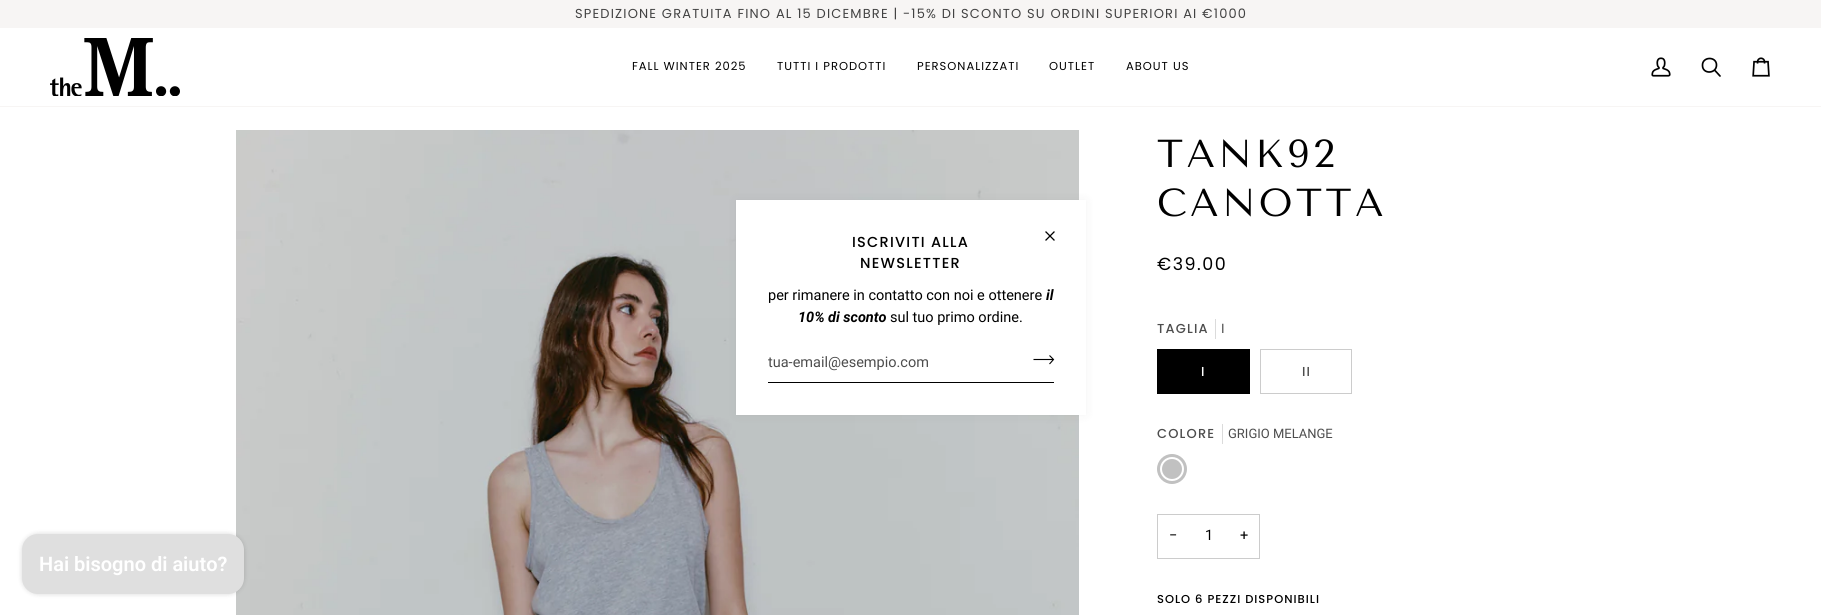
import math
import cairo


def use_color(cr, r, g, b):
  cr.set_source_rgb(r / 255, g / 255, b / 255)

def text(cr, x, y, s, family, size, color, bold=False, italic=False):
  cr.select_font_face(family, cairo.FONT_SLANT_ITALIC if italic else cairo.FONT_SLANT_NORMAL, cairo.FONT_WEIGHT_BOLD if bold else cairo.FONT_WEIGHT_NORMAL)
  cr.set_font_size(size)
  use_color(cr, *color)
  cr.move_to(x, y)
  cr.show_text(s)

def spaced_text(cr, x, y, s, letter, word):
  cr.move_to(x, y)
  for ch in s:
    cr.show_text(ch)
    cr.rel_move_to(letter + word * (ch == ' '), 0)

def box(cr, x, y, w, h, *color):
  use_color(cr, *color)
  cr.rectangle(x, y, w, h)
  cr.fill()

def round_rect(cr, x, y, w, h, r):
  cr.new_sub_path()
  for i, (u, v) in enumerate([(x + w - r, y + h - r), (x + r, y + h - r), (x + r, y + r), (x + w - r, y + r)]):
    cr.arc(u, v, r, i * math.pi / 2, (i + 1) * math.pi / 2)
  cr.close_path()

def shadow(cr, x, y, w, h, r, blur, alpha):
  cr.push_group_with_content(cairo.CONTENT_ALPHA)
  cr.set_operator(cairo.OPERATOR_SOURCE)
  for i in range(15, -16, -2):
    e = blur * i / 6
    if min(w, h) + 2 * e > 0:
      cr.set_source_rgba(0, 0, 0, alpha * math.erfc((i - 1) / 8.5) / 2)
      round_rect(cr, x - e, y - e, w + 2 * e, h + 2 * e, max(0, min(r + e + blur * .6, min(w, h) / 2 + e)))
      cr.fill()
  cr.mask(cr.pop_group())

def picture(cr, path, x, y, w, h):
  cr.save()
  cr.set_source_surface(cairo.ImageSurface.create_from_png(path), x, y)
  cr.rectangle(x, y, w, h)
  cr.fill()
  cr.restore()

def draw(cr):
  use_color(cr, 255, 255, 255)
  cr.paint()
  box(cr, 0, 0, 1821, 28, 247, 245, 244)
  box(cr, 0, 106, 1821, 1, 247, 245, 244)
  picture(cr, "img_01.png", 50, 38, 130, 58)
  picture(cr, "img_02.png", 1651, 57, 20, 20)
  cr.new_path()
  cr.move_to(1716.5, 65)
  cr.curve_to(1716.5, 74, 1702.5, 74.5, 1702.5, 65.5)
  cr.curve_to(1702, 56.5, 1716.5, 56, 1716.5, 65)
  cr.close_path()
  cr.move_to(1720, 76)
  cr.line_to(1714.5, 70)
  cr.close_path()
  use_color(cr, 0, 0, 0)
  cr.set_line_width(1.7)
  cr.set_line_cap(cairo.LINE_CAP_ROUND)
  cr.set_line_join(cairo.LINE_JOIN_ROUND)
  cr.stroke()
  picture(cr, "img_03.png", 1752, 57, 18, 20)
  picture(cr, "img_04.png", 236, 130, 843, 485)
  use_color(cr, 0, 0, 0)
  shadow(cr, 736, 200, 350, 215, 0, 5, 0.05)
  box(cr, 736, 200, 350, 215, 255, 255, 255)
  cr.new_path()
  cr.move_to(1054, 232)
  cr.line_to(1046, 240)
  cr.move_to(1046, 232)
  cr.line_to(1054, 240)
  use_color(cr, 0, 0, 0)
  cr.set_line_width(1.3)
  cr.set_line_cap(cairo.LINE_CAP_SQUARE)
  cr.set_line_join(cairo.LINE_JOIN_MITER)
  cr.stroke()
  box(cr, 768, 382, 286, 1, 0, 0, 0)
  cr.new_path()
  cr.move_to(1049.5, 355.5)
  cr.line_to(1053.5, 359.5)
  cr.line_to(1049.5, 364)
  cr.move_to(1033.5, 359.5)
  cr.line_to(1053.5, 359.5)
  cr.set_line_width(1.1)
  cr.set_line_cap(cairo.LINE_CAP_BUTT)
  cr.stroke()
  box(cr, 1215, 319, 1, 20, 219, 219, 219)
  box(cr, 1157, 349, 93, 45, 0, 0, 0)
  cr.rectangle(1260.5, 349.5, 91, 44)
  use_color(cr, 204, 204, 204)
  cr.set_line_width(1)
  cr.stroke()
  box(cr, 1222, 424, 1, 20, 219, 219, 219)
  use_color(cr, 193, 193, 193)
  cr.arc(1172, 469, 15, 0, 2 * math.pi)
  cr.fill()
  cr.arc(1172, 469, 11, 0, 2 * math.pi)
  use_color(cr, 255, 255, 255)
  cr.set_line_width(2)
  cr.stroke()
  cr.rectangle(1157.5, 514.5, 102, 44)
  use_color(cr, 204, 204, 204)
  cr.set_line_width(1)
  cr.stroke()
  use_color(cr, 0, 0, 0)
  shadow(cr, 22, 534, 222, 60, 16, 2.5, 0.15)
  use_color(cr, 223, 223, 223)
  round_rect(cr, 22, 534, 222, 60, 16)
  cr.fill()
  cr.select_font_face("Poppins")
  cr.set_font_size(13)
  use_color(cr, 66, 66, 66)
  spaced_text(cr, 575, 18, "SPEDIZIONE GRATUITA FINO AL 15 DICEMBRE | -15% DI SCONTO SU ORDINI SUPERIORI AI €1000", 1.17, 0)
  cr.set_font_size(11.5)
  use_color(cr, 0, 0, 0)
  spaced_text(cr, 632, 70, "FALL WINTER 2025", 1, 0)
  spaced_text(cr, 777, 70, "TUTTI I PRODOTTI", 1, 0)
  spaced_text(cr, 917, 70, "PERSONALIZZATI", 1, 0)
  spaced_text(cr, 1049, 70, "OUTLET", 1, 0)
  spaced_text(cr, 1126, 70, "ABOUT US", 1, 0)
  cr.select_font_face("Poppins Medium")
  cr.set_font_size(14.5)
  spaced_text(cr, 852, 247, "ISCRIVITI ALLA", 1.25, 0)
  spaced_text(cr, 860, 268, "NEWSLETTER", 1.25, 0)
  text(cr, 768, 300, "per rimanere in contatto con noi e ottenere", "Roboto", 14.5, (0, 0, 0))
  text(cr, 1046, 300, "il", "Roboto", 14.5, (0, 0, 0), bold=True, italic=True)
  text(cr, 798, 322, "10% di sconto", "Roboto", 14.5, (0, 0, 0), bold=True, italic=True)
  text(cr, 890, 322, "sul tuo primo ordine.", "Roboto", 14.5, (0, 0, 0))
  text(cr, 768, 367, "tua-email@esempio.com", "Roboto", 14.5, (77, 77, 77))
  cr.select_font_face("Tenor Sans")
  cr.set_font_size(39)
  use_color(cr, 0, 0, 0)
  spaced_text(cr, 1157, 167, "TANK92", 3.5, 0)
  spaced_text(cr, 1157, 216, "CANOTTA", 3.5, 0)
  cr.select_font_face("Poppins")
  cr.set_font_size(17.5)
  spaced_text(cr, 1157, 270, "€39.00", 1.5, 0)
  cr.select_font_face("Poppins Medium")
  cr.set_font_size(13)
  use_color(cr, 77, 77, 77)
  spaced_text(cr, 1157, 333, "TAGLIA", 1.17, 0)
  text(cr, 1221, 333, "I", "Roboto", 13, (77, 77, 77))
  cr.select_font_face("Poppins Medium")
  use_color(cr, 255, 255, 255)
  spaced_text(cr, 1201, 376, "I", 1.17, 0)
  use_color(cr, 77, 77, 77)
  spaced_text(cr, 1302, 376, "II", 1.17, 0)
  spaced_text(cr, 1157, 438, "COLORE", 1.17, 0)
  text(cr, 1228, 438, "GRIGIO MELANGE", "Roboto", 13, (77, 77, 77))
  text(cr, 1169, 540, "−", "Roboto", 14.5, (0, 0, 0))
  text(cr, 1205, 540, "1", "Roboto", 14.5, (0, 0, 0))
  text(cr, 1240, 540, "+", "Roboto", 14.5, (0, 0, 0))
  cr.select_font_face("Poppins Medium")
  cr.set_font_size(11.5)
  spaced_text(cr, 1157, 603, "SOLO 6 PEZZI DISPONIBILI", 1, 0)
  text(cr, 39, 571, "Hai bisogno di aiuto?", "Roboto SemiBold", 20, (255, 255, 255))


surface = cairo.ImageSurface(cairo.FORMAT_RGB24, 1821, 615)
cr = cairo.Context(surface)
options = cairo.FontOptions()
options.set_hint_metrics(cairo.HINT_METRICS_OFF)
options.set_hint_style(cairo.HINT_STYLE_NONE)
cr.set_font_options(options)
cr.set_miter_limit(4)
draw(cr)
surface.write_to_png("out.png")
